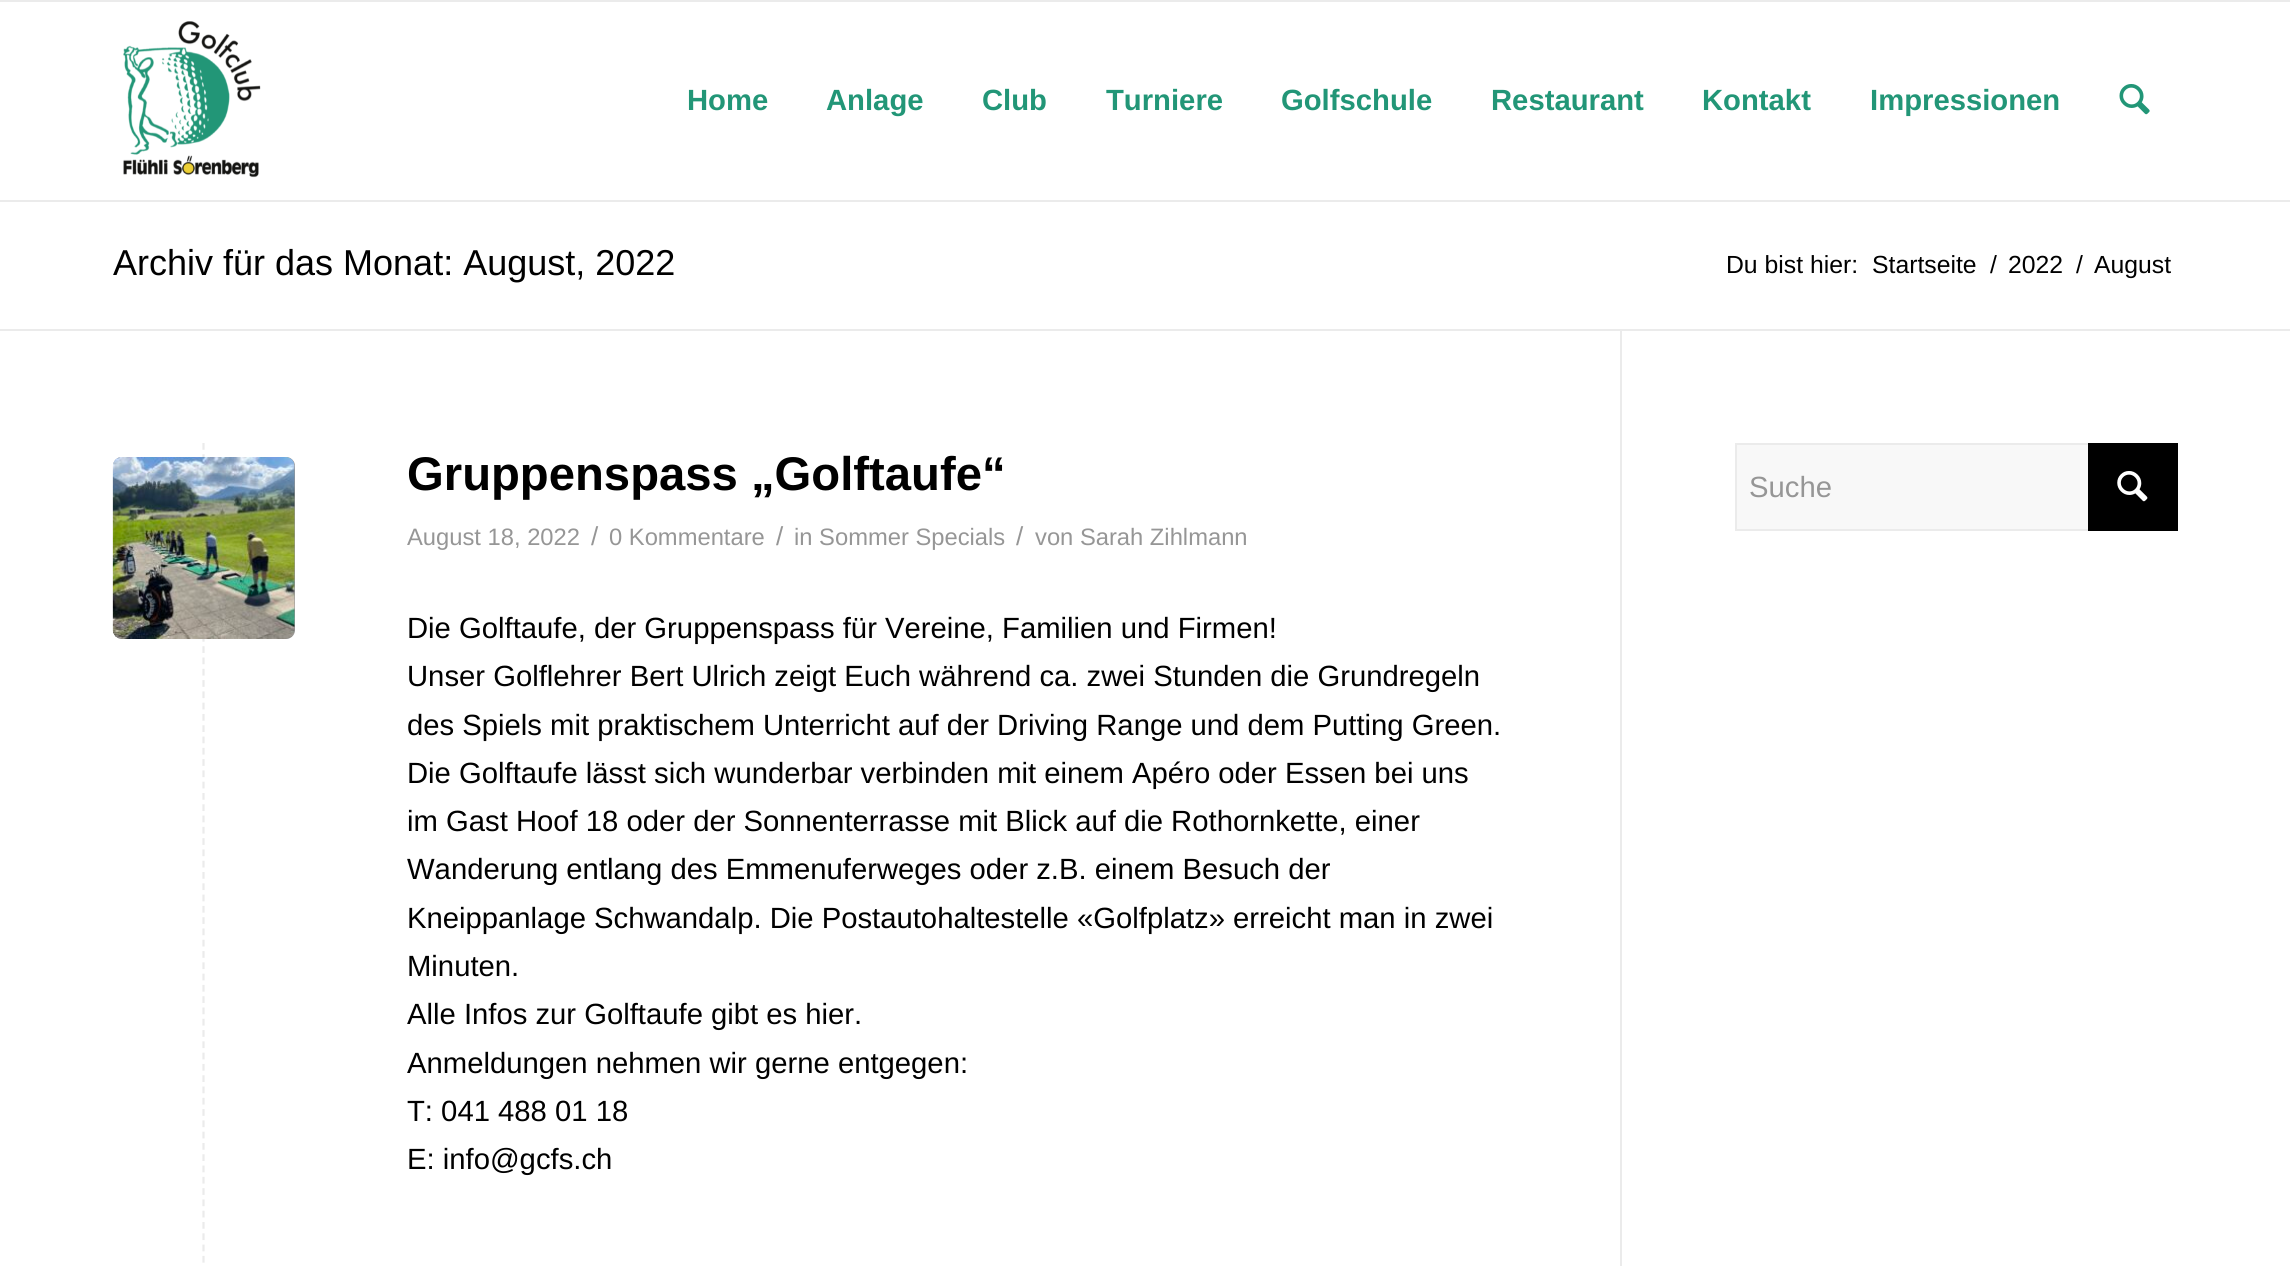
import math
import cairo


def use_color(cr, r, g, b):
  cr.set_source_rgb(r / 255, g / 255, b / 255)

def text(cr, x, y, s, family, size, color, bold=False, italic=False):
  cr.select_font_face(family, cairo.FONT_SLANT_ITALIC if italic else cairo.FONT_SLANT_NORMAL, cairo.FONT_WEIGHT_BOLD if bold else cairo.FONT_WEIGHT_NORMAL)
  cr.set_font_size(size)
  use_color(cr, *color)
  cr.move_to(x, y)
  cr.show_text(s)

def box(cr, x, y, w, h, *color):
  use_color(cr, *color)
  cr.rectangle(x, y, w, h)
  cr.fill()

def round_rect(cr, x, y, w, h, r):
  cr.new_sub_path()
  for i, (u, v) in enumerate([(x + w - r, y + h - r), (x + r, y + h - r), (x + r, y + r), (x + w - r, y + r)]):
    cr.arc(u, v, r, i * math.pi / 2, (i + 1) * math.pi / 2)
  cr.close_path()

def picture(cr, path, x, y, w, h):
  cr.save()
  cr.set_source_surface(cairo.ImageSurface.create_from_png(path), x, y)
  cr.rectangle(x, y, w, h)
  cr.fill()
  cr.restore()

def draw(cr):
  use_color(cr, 255, 255, 255)
  cr.paint()
  box(cr, 0, 0, 2290, 2, 235, 235, 235)
  box(cr, 0, 200, 2290, 2, 235, 235, 235)
  picture(cr, "img_01.png", 123, 21, 138, 157)
  picture(cr, "img_02.png", 2119, 84, 31, 31)
  box(cr, 0, 329, 2290, 2, 235, 235, 235)
  box(cr, 1620, 331, 2, 935, 235, 235, 235)
  cr.new_path()
  cr.move_to(203.5, 443)
  cr.line_to(203.5, 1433)
  cr.set_line_width(2.2)
  cr.set_dash([6.75, 4.54])
  cr.stroke()
  use_color(cr, 150, 150, 150)
  round_rect(cr, 113, 457, 182, 182, 9)
  cr.fill()
  picture(cr, "img_03.png", 112, 457, 183, 182)
  box(cr, 1737, 445, 351, 84, 248, 248, 248)
  cr.rectangle(1736, 444, 441, 86)
  use_color(cr, 235, 235, 235)
  cr.set_line_width(2)
  cr.set_dash([])
  cr.stroke()
  box(cr, 2088, 443, 90, 88, 0, 0, 0)
  picture(cr, "img_04.png", 2117, 471, 31, 31)
  text(cr, 687, 110, "Home", "Liberation Sans", 29.25, (34, 150, 119), bold=True)
  text(cr, 826, 110, "Anlage", "Liberation Sans", 29.25, (34, 150, 119), bold=True)
  text(cr, 982, 110, "Club", "Liberation Sans", 29.25, (34, 150, 119), bold=True)
  text(cr, 1106, 110, "Turniere", "Liberation Sans", 29.25, (34, 150, 119), bold=True)
  text(cr, 1281, 110, "Golfschule", "Liberation Sans", 29.25, (34, 150, 119), bold=True)
  text(cr, 1491, 110, "Restaurant", "Liberation Sans", 29.25, (34, 150, 119), bold=True)
  text(cr, 1702, 110, "Kontakt", "Liberation Sans", 29.25, (34, 150, 119), bold=True)
  text(cr, 1870, 110, "Impressionen", "Liberation Sans", 29.25, (34, 150, 119), bold=True)
  text(cr, 113, 275, "Archiv für das Monat: August, 2022", "Liberation Sans", 36, (0, 0, 0))
  text(cr, 1726, 273, "Du bist hier:", "Liberation Sans", 24.75, (0, 0, 0))
  text(cr, 1872, 273, "Startseite", "Liberation Sans", 24.75, (0, 0, 0))
  text(cr, 1990, 273, "/", "Liberation Sans", 24.75, (0, 0, 0))
  text(cr, 2008, 273, "2022", "Liberation Sans", 24.75, (0, 0, 0))
  text(cr, 2076, 273, "/", "Liberation Sans", 24.75, (0, 0, 0))
  text(cr, 2094, 273, "August", "Liberation Sans", 24.75, (0, 0, 0))
  text(cr, 407, 490, "Gruppenspass „Golftaufe“", "Liberation Sans", 47.25, (0, 0, 0), bold=True)
  text(cr, 407, 545, "August 18, 2022", "Liberation Sans", 23.75, (150, 150, 150))
  text(cr, 591, 545, "/", "Liberation Sans", 26, (150, 150, 150))
  text(cr, 609, 545, "0 Kommentare", "Liberation Sans", 23.75, (150, 150, 150))
  text(cr, 776, 545, "/", "Liberation Sans", 26, (150, 150, 150))
  text(cr, 794, 545, "in Sommer Specials", "Liberation Sans", 23.75, (150, 150, 150))
  text(cr, 1016, 545, "/", "Liberation Sans", 26, (150, 150, 150))
  text(cr, 1035, 545, "von Sarah Zihlmann", "Liberation Sans", 23.75, (150, 150, 150))
  text(cr, 407, 638, "Die Golftaufe, der Gruppenspass für Vereine, Familien und Firmen!", "Liberation Sans", 29.25, (0, 0, 0))
  text(cr, 407, 686, "Unser Golflehrer Bert Ulrich zeigt Euch während ca. zwei Stunden die Grundregeln", "Liberation Sans", 29.25, (0, 0, 0))
  text(cr, 407, 735, "des Spiels mit praktischem Unterricht auf der Driving Range und dem Putting Green.", "Liberation Sans", 29.25, (0, 0, 0))
  text(cr, 407, 783, "Die Golftaufe lässt sich wunderbar verbinden mit einem Apéro oder Essen bei uns", "Liberation Sans", 29.25, (0, 0, 0))
  text(cr, 407, 831, "im Gast Hoof 18 oder der Sonnenterrasse mit Blick auf die Rothornkette, einer", "Liberation Sans", 29.25, (0, 0, 0))
  text(cr, 407, 879, "Wanderung entlang des Emmenuferweges oder z.B. einem Besuch der", "Liberation Sans", 29.25, (0, 0, 0))
  text(cr, 407, 928, "Kneippanlage Schwandalp. Die Postautohaltestelle «Golfplatz» erreicht man in zwei", "Liberation Sans", 29.25, (0, 0, 0))
  text(cr, 407, 976, "Minuten.", "Liberation Sans", 29.25, (0, 0, 0))
  text(cr, 407, 1024, "Alle Infos zur Golftaufe gibt es hier.", "Liberation Sans", 29.25, (0, 0, 0))
  text(cr, 407, 1073, "Anmeldungen nehmen wir gerne entgegen:", "Liberation Sans", 29.25, (0, 0, 0))
  text(cr, 407, 1121, "T: 041 488 01 18", "Liberation Sans", 29.25, (0, 0, 0))
  text(cr, 407, 1169, "E: info@gcfs.ch", "Liberation Sans", 29.25, (0, 0, 0))
  text(cr, 1749, 497, "Suche", "Liberation Sans", 29.25, (150, 150, 150))


surface = cairo.ImageSurface(cairo.FORMAT_RGB24, 2290, 1266)
cr = cairo.Context(surface)
options = cairo.FontOptions()
options.set_hint_metrics(cairo.HINT_METRICS_OFF)
options.set_hint_style(cairo.HINT_STYLE_NONE)
cr.set_font_options(options)
cr.set_miter_limit(4)
draw(cr)
surface.write_to_png("out.png")
